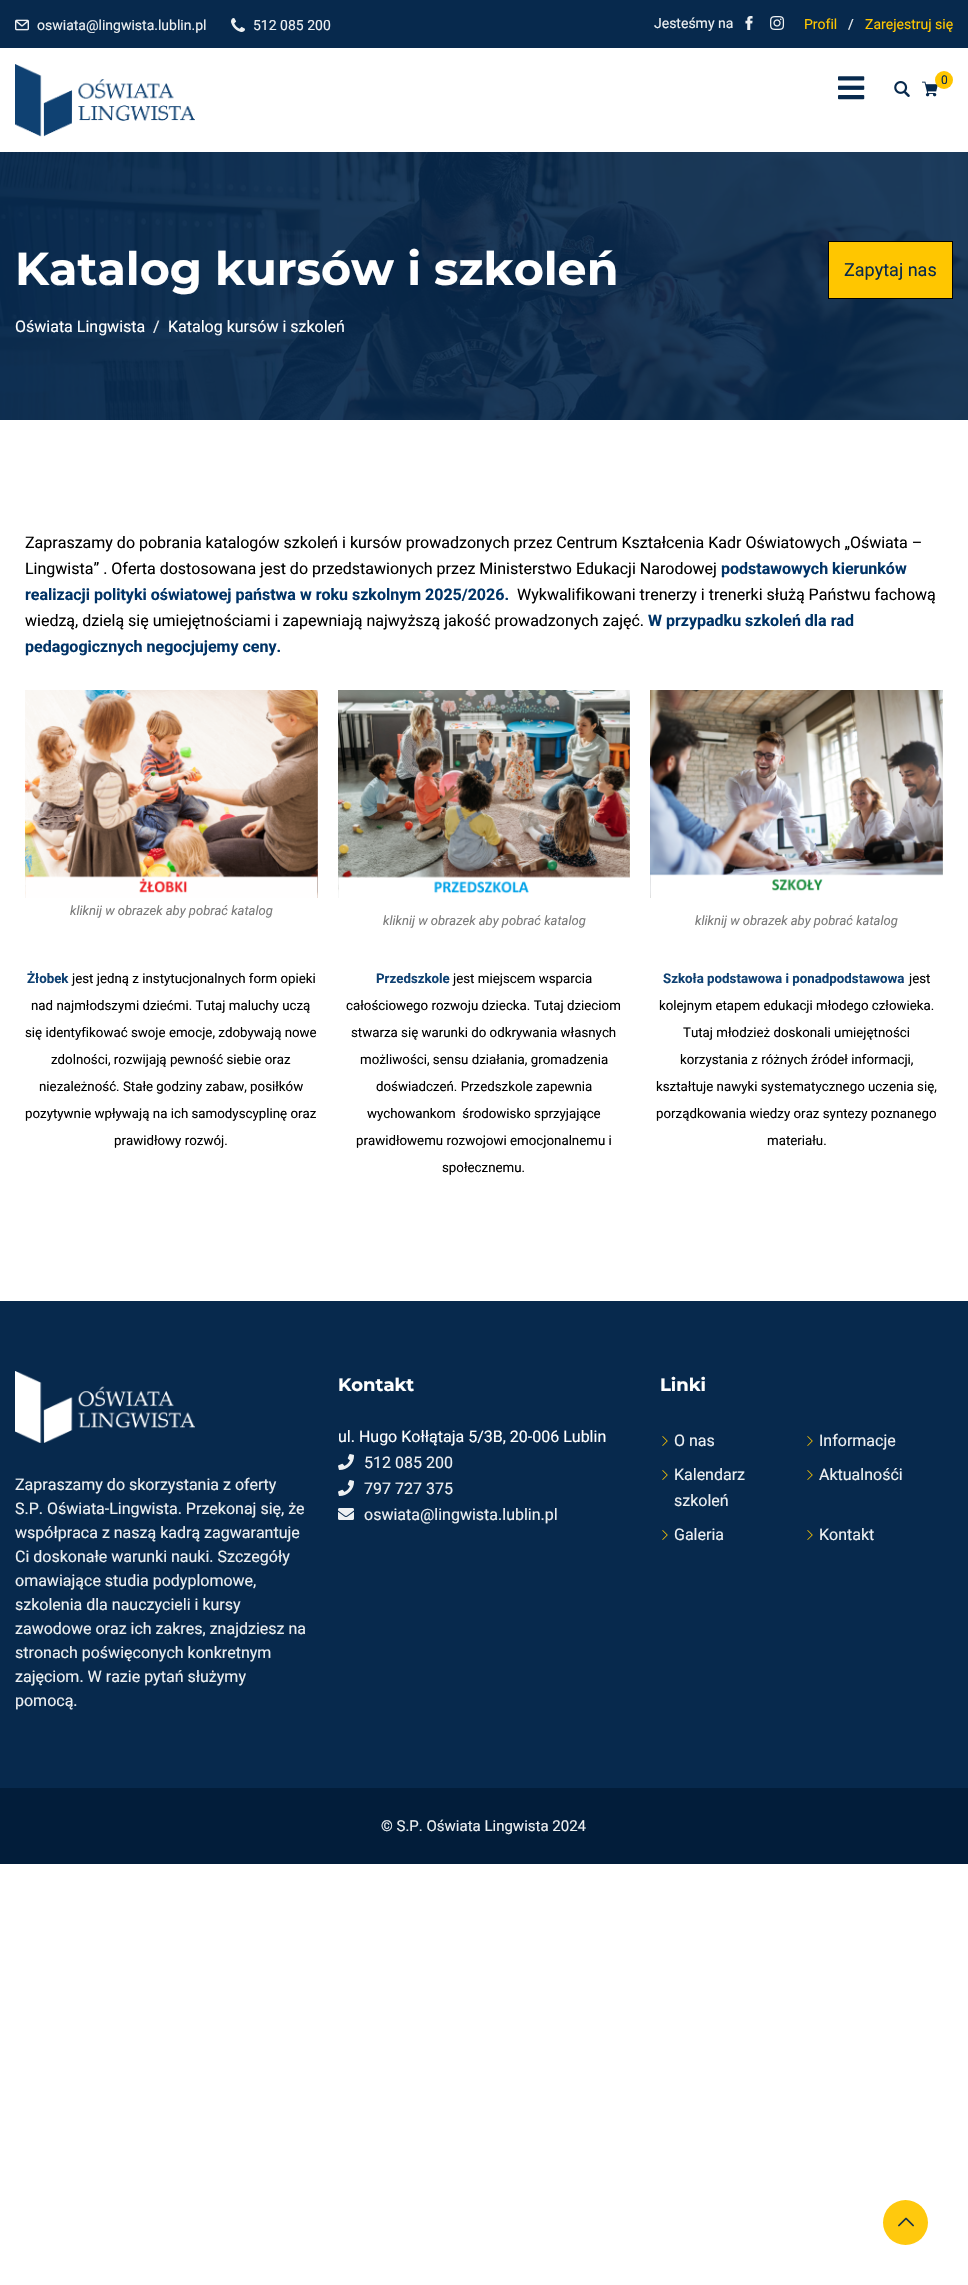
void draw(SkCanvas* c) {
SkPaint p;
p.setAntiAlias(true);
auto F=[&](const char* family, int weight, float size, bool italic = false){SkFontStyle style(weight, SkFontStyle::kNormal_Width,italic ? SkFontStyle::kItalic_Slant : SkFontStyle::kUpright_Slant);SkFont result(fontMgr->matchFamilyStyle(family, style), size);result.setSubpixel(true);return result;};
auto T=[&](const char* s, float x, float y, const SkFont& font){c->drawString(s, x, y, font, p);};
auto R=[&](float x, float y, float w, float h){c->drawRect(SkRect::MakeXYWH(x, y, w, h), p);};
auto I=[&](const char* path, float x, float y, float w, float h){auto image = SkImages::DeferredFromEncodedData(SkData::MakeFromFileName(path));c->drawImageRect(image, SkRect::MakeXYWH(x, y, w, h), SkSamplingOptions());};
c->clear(0xffffffff);
p.setColor(0xff07294d);
R(0,0,968,48);
I("1.png",15,19,14,12);
auto f1 = F("Roboto",400,14);
p.setColor(0xffedf0f2);
T("oswiata@lingwista.lublin.pl",37,30,f1);
I("2.png",231,18,14,14);
T("512 085 200",253,30,f1);
T("Jesteśmy na",654,28,f1);
I("3.png",745,16,8,14);
I("4.png",770,16,15,14);
p.setColor(0xffffc600);
T("Profil",804,29,f1);
p.setColor(0xffedf0f2);
T("/",848,29,f1);
p.setColor(0xffffc600);
T("Zarejestruj się",865,29,f1);
I("5.png",15,64,180,73);
I("6.png",838,76,27,24);
I("7.png",922,81,16,16);
c->drawCircle(944,80,9,p);
auto f2 = F("Roboto",400,12);
p.setColor(0xff07294d);
T("0",941,84,f2);
I("8.png",894,81,16,16);
I("9.png",0,152,968,268);
auto f3 = F("Montserrat",700,46);
p.setColor(0xffffffff);
T("Katalog kursów i szkoleń",15,285,f3);
p.setColor(0xffffc600);
c->drawRect(SkRect::MakeXYWH(828.5,241.5,124,57),p);
p.setStroke(true);
p.setStrokeWidth(1);
p.setColor(0xff000000);
c->drawRect(SkRect::MakeXYWH(828.5,241.5,124,57),p);
auto f4 = F("Roboto",400,18);
p.setStroke(false);
p.setColor(0xff07294d);
T("Zapytaj nas",844,276,f4);
auto f5 = F("Roboto",400,16);
p.setColor(0xffffffff);
T("Oświata Lingwista",15,332,f5);
p.setColor(0xffedf0f2);
T("/",153,332,f5);
p.setColor(0xffffffff);
T("Katalog kursów i szkoleń",168,332,f5);
p.setColor(0xff000000);
T("Zapraszamy do pobrania katalogów szkoleń i kursów prowadzonych przez Centrum Kształcenia Kadr Oświatowych „Oświata –",25,548,f5);
T("Lingwista” . Oferta dostosowana jest do przedstawionych przez Ministerstwo Edukacji Narodowej",25,574,f5);
auto f6 = F("Roboto",700,16);
p.setColor(0xff003366);
T("podstawowych kierunków",721,574,f6);
T("realizacji polityki oświatowej państwa w roku szkolnym 2025/2026.",25,600,f6);
p.setColor(0xff000000);
T("Wykwalifikowani trenerzy i trenerki służą Państwu fachową",517,600,f5);
T("wiedzą, dzielą się umiejętnościami i zapewniają najwyższą jakość prowadzonych zajęć.",25,626,f5);
p.setColor(0xff003366);
T("W przypadku szkoleń dla rad",648,626,f6);
T("pedagogicznych negocjujemy ceny.",25,652,f6);
I("10.png",25,690,293,208);
auto f7 = F("Roboto",400,13,true);
p.setColor(0xff7a7a7a);
T("kliknij w obrazek aby pobrać katalog",70,915,f7);
I("11.png",338,690,292,208);
T("kliknij w obrazek aby pobrać katalog",383,925,f7);
I("12.png",650,690,293,208);
T("kliknij w obrazek aby pobrać katalog",695,925,f7);
auto f8 = F("Roboto",700,13.3);
p.setColor(0xff0f4172);
T("Żłobek",27,983,f8);
auto f9 = F("Roboto",400,13.3);
p.setColor(0xff000000);
T("jest jedną z instytucjonalnych form opieki",72,983,f9);
T("nad najmłodszymi dziećmi. Tutaj maluchy uczą",31,1010,f9);
T("się identyfikować swoje emocje, zdobywają nowe",25,1037,f9);
T("zdolności, rozwijają pewność siebie oraz",51,1064,f9);
T("niezależność. Stałe godziny zabaw, posiłków",39,1091,f9);
T("pozytywnie wpływają na ich samodyscyplinę oraz",25,1118,f9);
T("prawidłowy rozwój.",114,1145,f9);
p.setColor(0xff0f4172);
T("Przedszkole",376,983,f8);
p.setColor(0xff000000);
T("jest miejscem wsparcia",453,983,f9);
T("całościowego rozwoju dziecka. Tutaj dzieciom",346,1010,f9);
T("stwarza się warunki do odkrywania własnych",351,1037,f9);
T("możliwości, sensu działania, gromadzenia",360,1064,f9);
T("doświadczeń. Przedszkole zapewnia",376,1091,f9);
T("wychowankom  środowisko sprzyjające",367,1118,f9);
T("prawidłowemu rozwojowi emocjonalnemu i",356,1145,f9);
T("społecznemu.",442,1172,f9);
p.setColor(0xff0f4172);
T("Szkoła podstawowa i ponadpodstawowa",663,983,f8);
p.setColor(0xff000000);
T("jest",909,983,f9);
T("kolejnym etapem edukacji młodego człowieka.",659,1010,f9);
T("Tutaj młodzież doskonali umiejętności",683,1037,f9);
T("korzystania z różnych źródeł informacji,",680,1064,f9);
T("kształtuje nawyki systematycznego uczenia się,",656,1091,f9);
T("porządkowania wiedzy oraz syntezy poznanego",656,1118,f9);
T("materiału.",767,1145,f9);
p.setColor(0xff07294d);
R(0,1301,968,487);
auto f10 = F("Montserrat",700,18);
p.setColor(0xffffffff);
T("Kontakt",338,1391,f10);
T("ul. Hugo Kołłątaja 5/3B, 20-006 Lublin",338,1442,f5);
I("13.png",338,1454,16,16);
p.setColor(0xffedf0f2);
T("512 085 200",364,1468,f5);
I("13.png",338,1480,16,16);
T("797 727 375",364,1494,f5);
I("14.png",338,1508,16,12);
T("oswiata@lingwista.lublin.pl",364,1520,f5);
p.setColor(0xffffffff);
T("Linki",660,1391,f10);
I("15.png",662,1436,6,10);
p.setColor(0xffedf0f2);
T("O nas",674,1446,f5);
I("15.png",807,1436,6,10);
T("Informacje",819,1446,f5);
I("15.png",662,1470,6,10);
T("Kalendarz",674,1480,f5);
T("szkoleń",674,1506,f5);
I("15.png",807,1470,6,10);
T("Aktualnośći",819,1480,f5);
I("15.png",662,1530,6,10);
T("Galeria",674,1540,f5);
I("15.png",807,1530,6,10);
T("Kontakt",819,1540,f5);
I("16.png",15,1371,180,72);
T("Zapraszamy do skorzystania z oferty",15,1490,f5);
T("S.P. Oświata-Lingwista. Przekonaj się, że",15,1514,f5);
T("współpraca z naszą kadrą zagwarantuje",15,1538,f5);
T("Ci doskonałe warunki nauki. Szczegóły",15,1562,f5);
T("omawiające studia podyplomowe,",15,1586,f5);
T("szkolenia dla nauczycieli i kursy",15,1610,f5);
T("zawodowe oraz ich zakres, znajdziesz na",15,1634,f5);
T("stronach poświęconych konkretnym",15,1658,f5);
T("zajęciom. W razie pytań służymy",15,1682,f5);
T("pomocą.",15,1706,f5);
p.setColor(0xff021d3a);
R(0,1788,968,76);
auto f11 = F("Roboto",400,15);
p.setColor(0xffedf0f2);
T("© S.P. Oświata Lingwista 2024",381,1831,f11);
p.setColor(0xffffc90d);
c->drawCircle(905.5,2222.5,22.5,p);
I("17.png",898,2217,16,10);
}
